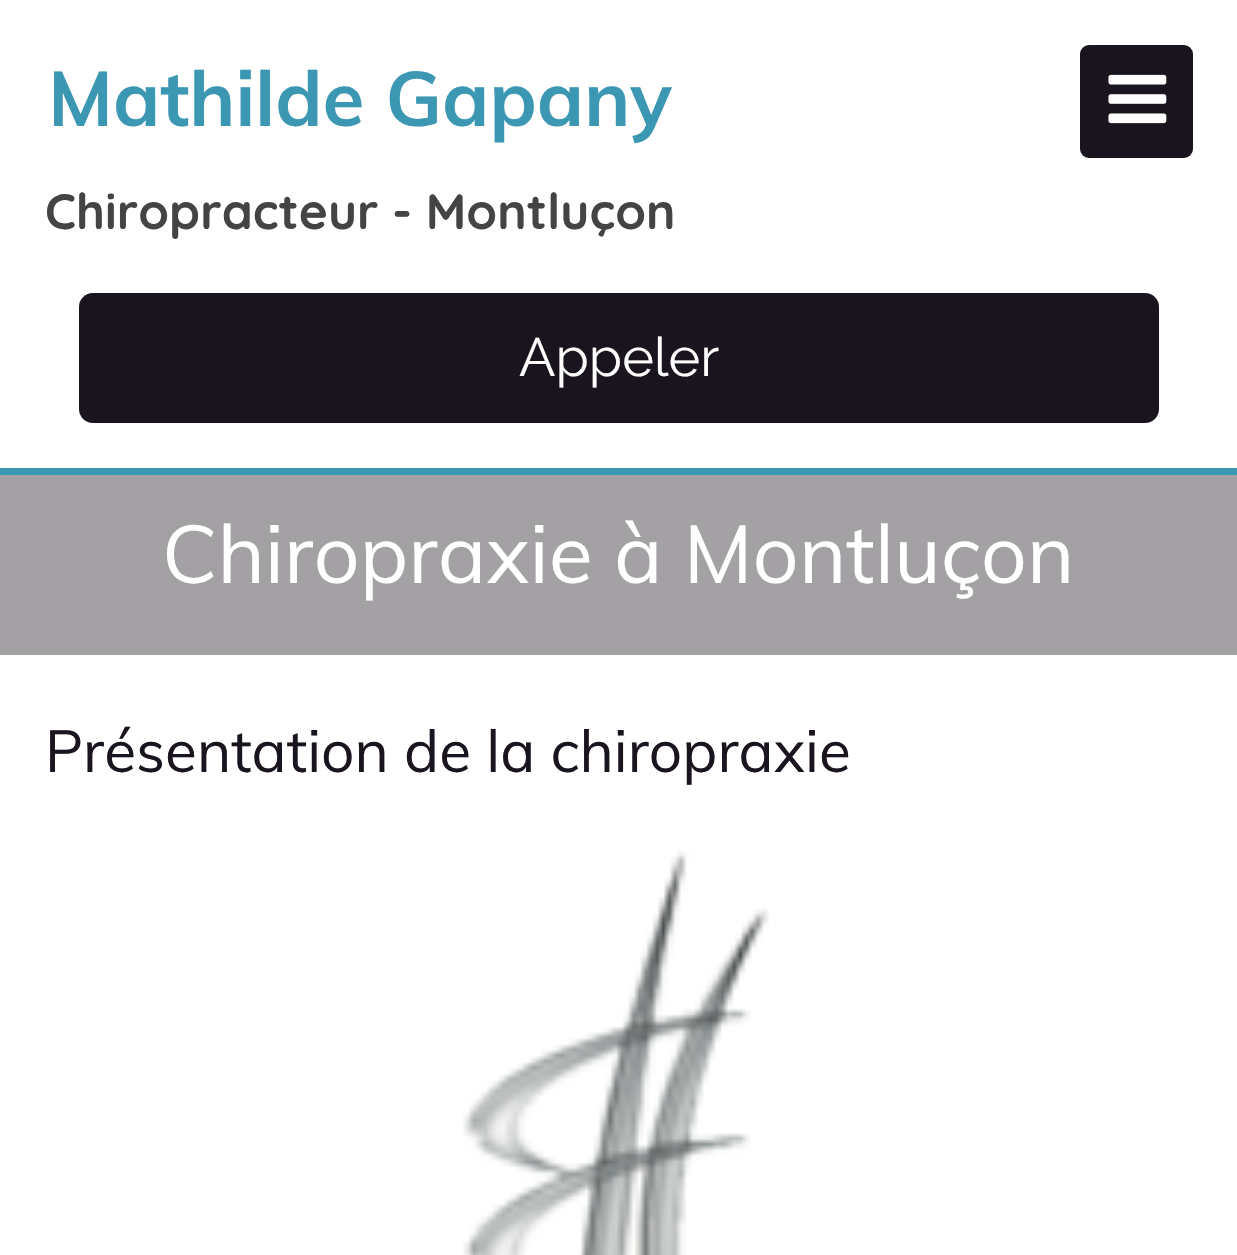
void draw(SkCanvas* c) {
SkPaint p;
p.setAntiAlias(true);
auto F=[&](const char* family, int weight, float size, bool italic = false){SkFontStyle style(weight, SkFontStyle::kNormal_Width,italic ? SkFontStyle::kItalic_Slant : SkFontStyle::kUpright_Slant);SkFont result(fontMgr->matchFamilyStyle(family, style), size);result.setSubpixel(true);return result;};
auto T=[&](const char* s, float x, float y, const SkFont& font){c->drawString(s, x, y, font, p);};
auto R=[&](float x, float y, float w, float h){c->drawRect(SkRect::MakeXYWH(x, y, w, h), p);};
auto Q=[&](float x, float y, float w, float h, float radius){c->drawRoundRect(SkRect::MakeXYWH(x, y, w, h), radius, radius, p);};
auto I=[&](const char* path, float x, float y, float w, float h){auto image = SkImages::DeferredFromEncodedData(SkData::MakeFromFileName(path));c->drawImageRect(image, SkRect::MakeXYWH(x, y, w, h), SkSamplingOptions());};
c->clear(0xffffffff);
p.setColor(0xff3c97b3);
R(0,468,1237,7);
auto f1 = F("Muli",700,76.5);
T("Mathilde Gapany",48,126,f1);
auto f2 = F("Quicksand",700,49.5);
p.setColor(0xff444444);
T("Chiropracteur - Montluçon",45,229,f2);
p.setColor(0xff1a141e);
Q(1080,45,113,113,9);
I("1.png",1108,74,59,50);
Q(79,293,1080,130,14);
auto f3 = F("Raleway",400,54);
p.setColor(0xffffffff);
T("Appeler",519,376,f3);
p.setColor(0xffa4a1a5);
R(0,475,1237,180);
auto f4 = F("Muli",400,81);
p.setColor(0xffffffff);
T("Chiropraxie à Montluçon",162,583,f4);
auto f5 = F("Muli",400,58.5);
p.setColor(0xff1a141e);
T("Présentation de la chiropraxie",45,772,f5);
I("2.png",463,850,306,405);
}
